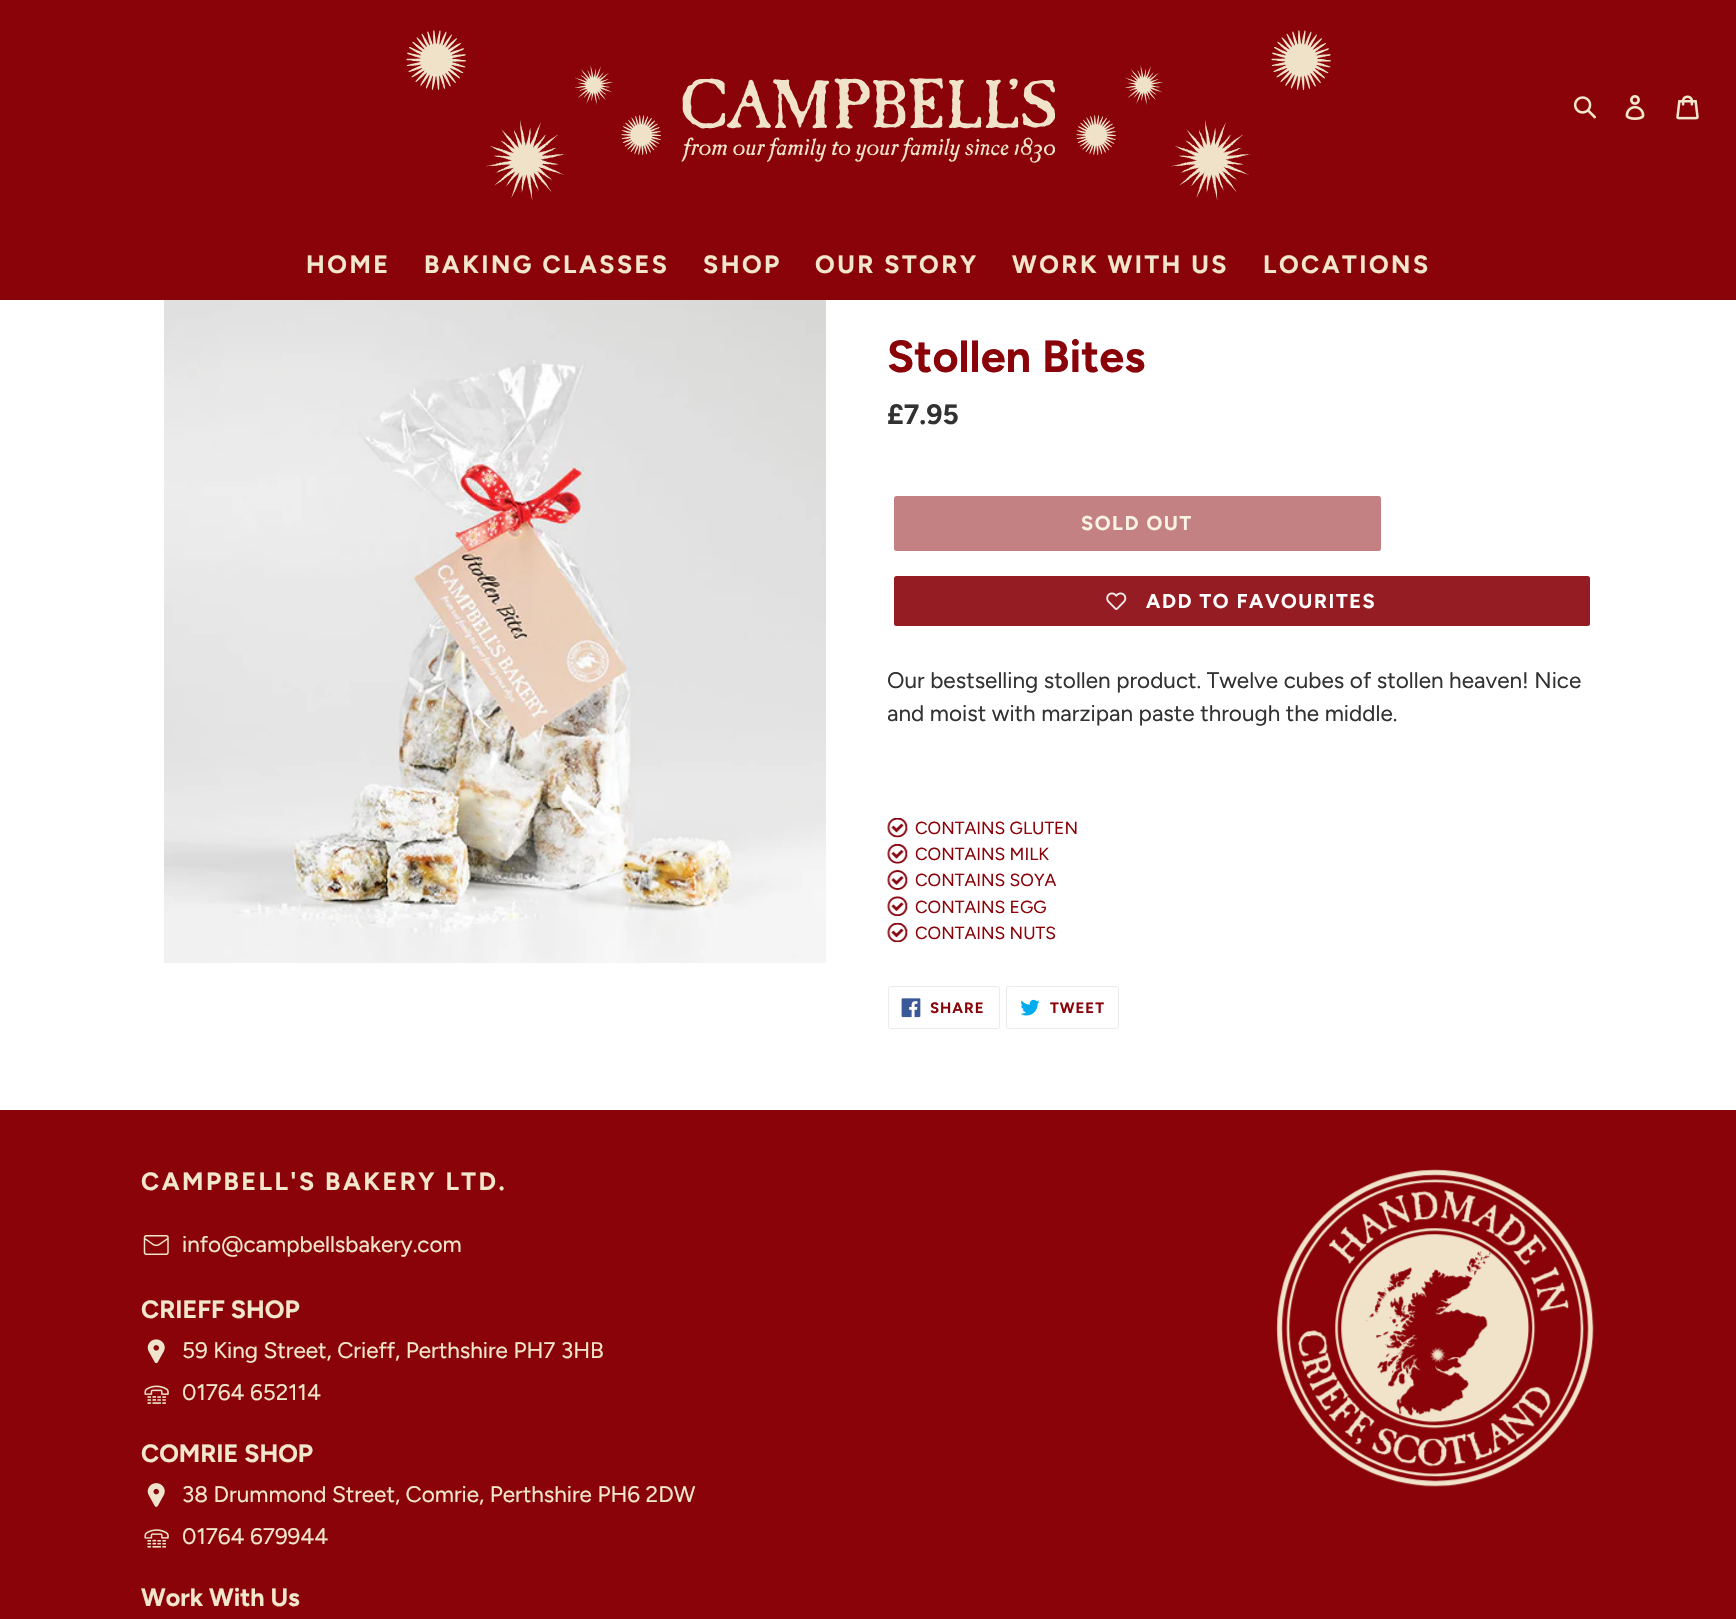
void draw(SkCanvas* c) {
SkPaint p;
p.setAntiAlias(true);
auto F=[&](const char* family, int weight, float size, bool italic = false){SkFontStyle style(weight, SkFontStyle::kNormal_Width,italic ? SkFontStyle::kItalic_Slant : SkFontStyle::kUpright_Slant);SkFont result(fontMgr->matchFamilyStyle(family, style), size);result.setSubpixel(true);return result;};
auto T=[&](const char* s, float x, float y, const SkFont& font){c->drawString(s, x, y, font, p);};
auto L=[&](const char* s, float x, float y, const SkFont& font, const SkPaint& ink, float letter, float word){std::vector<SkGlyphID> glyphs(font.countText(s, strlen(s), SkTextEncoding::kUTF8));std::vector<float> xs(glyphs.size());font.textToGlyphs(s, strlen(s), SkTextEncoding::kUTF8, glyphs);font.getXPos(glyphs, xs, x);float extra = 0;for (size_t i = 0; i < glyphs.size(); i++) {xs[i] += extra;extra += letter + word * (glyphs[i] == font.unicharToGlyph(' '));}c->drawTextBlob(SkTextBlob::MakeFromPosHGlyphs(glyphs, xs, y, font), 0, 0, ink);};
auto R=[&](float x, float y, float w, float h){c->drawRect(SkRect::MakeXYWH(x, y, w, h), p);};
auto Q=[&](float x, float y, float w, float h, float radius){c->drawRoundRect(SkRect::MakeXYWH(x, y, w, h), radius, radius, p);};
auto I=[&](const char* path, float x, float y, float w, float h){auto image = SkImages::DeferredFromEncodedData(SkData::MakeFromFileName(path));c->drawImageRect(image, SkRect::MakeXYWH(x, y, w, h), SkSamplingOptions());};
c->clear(0xffffffff);
p.setColor(0xff890309);
R(0,0,1736,300);
I("1.png",406,30,60,60);
I("2.png",575,65,38,40);
I("2.png",1125,65,38,40);
I("1.png",1271,30,60,60);
I("3.png",486,120,80,80);
I("4.png",621,115,40,40);
I("4.png",1076,115,40,40);
I("5.png",1171,120,80,80);
I("6.png",681,78,374,85);
I("7.png",1573,96,23,23);
I("8.png",1625,95,20,25);
I("9.png",1676,95,23,25);
auto f1 = F("Figtree",700,25);
p.setColor(0xfff2e7cc);
L("HOME",306,273,f1,p,2.5,0);
L("BAKING CLASSES",424,273,f1,p,2.5,0);
L("SHOP",703,273,f1,p,2.5,0);
L("OUR STORY",815,273,f1,p,2.5,0);
L("WORK WITH US",1012,273,f1,p,2.5,0);
L("LOCATIONS",1263,273,f1,p,2.5,0);
I("10.png",164,300,662,663);
auto f2 = F("Figtree",700,45);
p.setColor(0xff890309);
T("Stollen Bites",887,372,f2);
auto f3 = F("Figtree",700,28);
p.setColor(0xff333232);
T("£7.95",887,424,f3);
p.setColor(0xffc48184);
Q(894,496,487,55,2.5);
auto f4 = F("Figtree",700,20);
p.setColor(0xfff9f3e6);
L("SOLD OUT",1081,530,f4,p,1.6,0);
p.setColor(0xff951c22);
Q(894,576,696,50,2.5);
I("11.png",1106,592,21,18);
p.setColor(0xffffffff);
L("ADD TO FAVOURITES",1146,608,f4,p,1.6,0);
auto f5 = F("Figtree",400,22.5);
p.setColor(0xff333232);
T("Our bestselling stollen product. Twelve cubes of stollen heaven! Nice",887,688,f5);
T("and moist with marzipan paste through the middle.",887,721,f5);
I("12.png",887,818,21,20);
auto f6 = F("Figtree",400,17.5);
p.setColor(0xff890309);
T("CONTAINS GLUTEN",915,834,f6);
I("13.png",887,844,21,20);
T("CONTAINS MILK",915,860,f6);
I("14.png",887,870,21,20);
T("CONTAINS SOYA",915,886,f6);
I("15.png",887,896,21,20);
T("CONTAINS EGG",915,913,f6);
I("16.png",887,923,21,19);
T("CONTAINS NUTS",915,939,f6);
p.setStroke(true);
p.setStrokeWidth(1);
p.setColor(0xffebebeb);
c->drawRoundRect(SkRect::MakeXYWH(888.5,986.5,111,42),2,2,p);
I("17.png",901,998,20,20);
auto f7 = F("Figtree",700,15);
p.setStroke(false);
p.setColor(0xff890309);
L("SHARE",930,1013,f7,p,1,0);
p.setStroke(true);
p.setColor(0xffebebeb);
c->drawRoundRect(SkRect::MakeXYWH(1006.5,986.5,112,42),2,2,p);
I("18.png",1020,999,20,17);
p.setStroke(false);
p.setColor(0xff890309);
L("TWEET",1050,1013,f7,p,1,0);
R(0,1110,1736,509);
p.setColor(0xfff2e7cc);
L("CAMPBELL'S BAKERY LTD.",141,1190,f1,p,2.5,0);
I("19.png",143,1235,26,20);
T("info@campbellsbakery.com",182,1252,f5);
T("CRIEFF SHOP",141,1318,f1);
I("20.png",147,1339,18,25);
T("59 King Street, Crieff, Perthshire PH7 3HB",182,1358,f5);
I("21.png",144,1385,25,19);
T("01764 652114",182,1400,f5);
T("COMRIE SHOP",141,1462,f1);
I("22.png",147,1483,18,24);
T("38 Drummond Street, Comrie, Perthshire PH6 2DW",182,1502,f5);
I("23.png",144,1529,25,19);
T("01764 679944",182,1544,f5);
T("Work With Us",141,1606,f1);
I("24.png",1276,1169,318,318);
}
